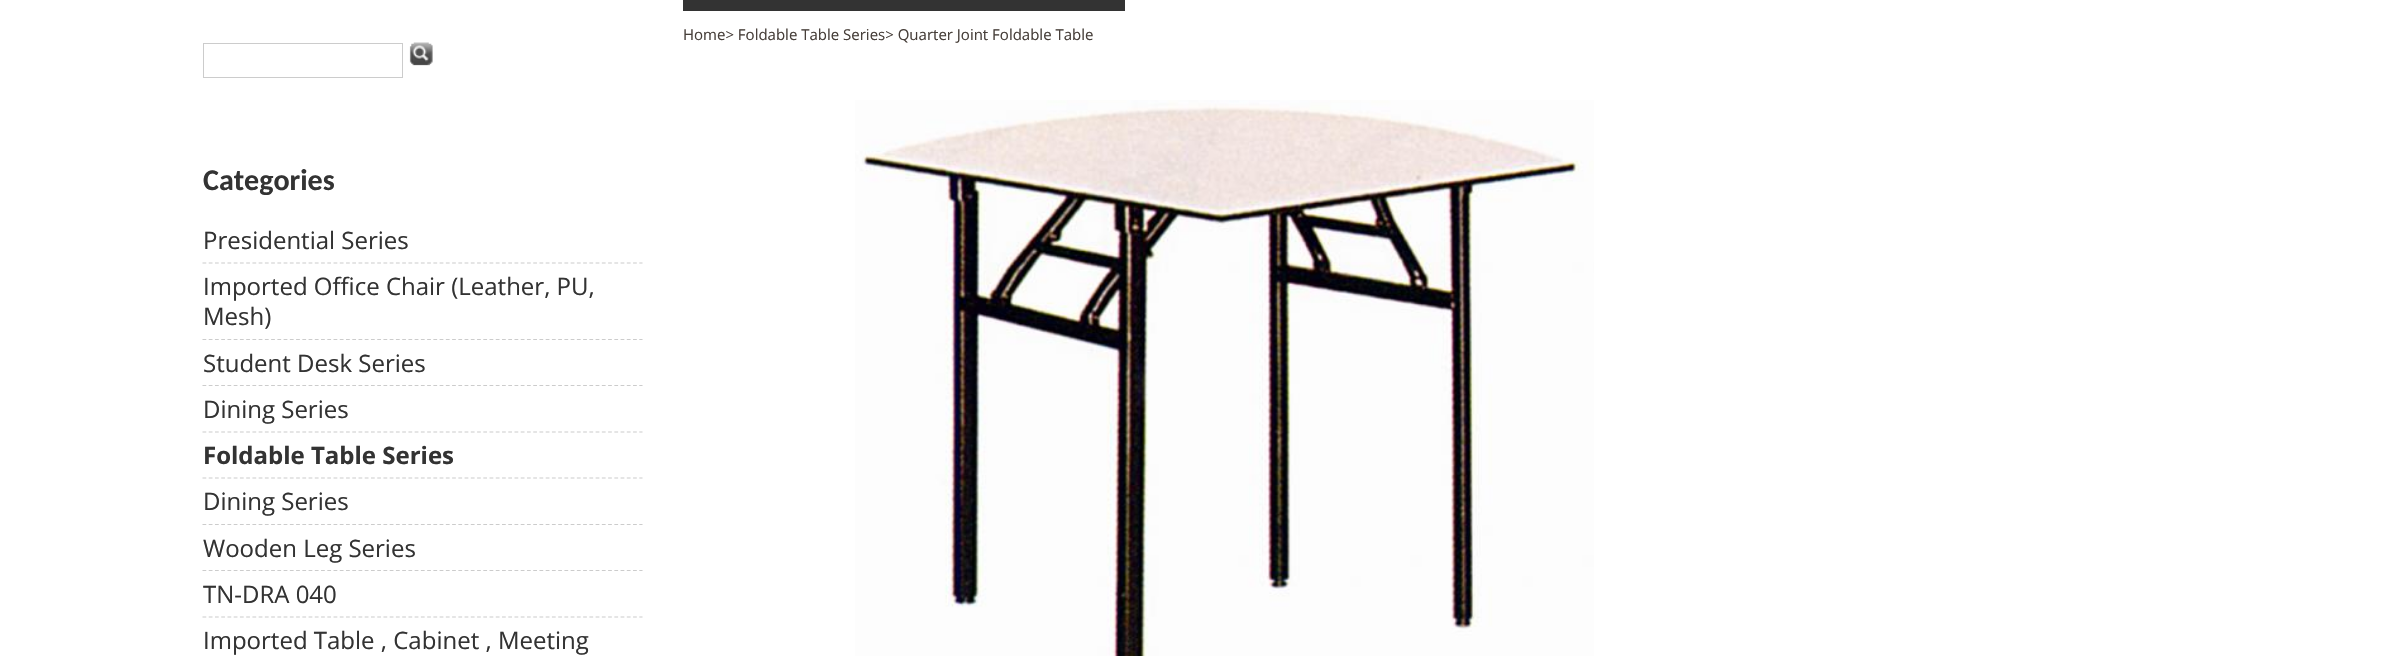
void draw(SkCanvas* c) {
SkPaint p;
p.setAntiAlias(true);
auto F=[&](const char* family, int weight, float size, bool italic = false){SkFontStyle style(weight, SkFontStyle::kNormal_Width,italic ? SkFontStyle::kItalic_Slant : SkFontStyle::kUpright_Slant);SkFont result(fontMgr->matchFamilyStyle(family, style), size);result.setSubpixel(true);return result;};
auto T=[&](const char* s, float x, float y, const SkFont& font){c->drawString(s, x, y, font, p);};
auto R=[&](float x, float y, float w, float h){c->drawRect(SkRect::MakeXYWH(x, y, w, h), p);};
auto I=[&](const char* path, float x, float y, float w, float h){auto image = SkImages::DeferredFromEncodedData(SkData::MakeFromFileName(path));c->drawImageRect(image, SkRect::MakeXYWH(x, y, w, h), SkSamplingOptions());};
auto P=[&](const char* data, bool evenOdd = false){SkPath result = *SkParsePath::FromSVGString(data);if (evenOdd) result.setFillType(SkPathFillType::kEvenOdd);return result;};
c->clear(0xffffffff);
p.setColor(0xff333333);
R(683,0,442,11);
auto f1 = F("Open Sans",400,15);
p.setColor(0xff473f3a);
T("Home> Foldable Table Series> Quarter Joint Foldable Table",683,40,f1);
I("1.png",855,100,739,556);
p.setStroke(true);
p.setStrokeWidth(1);
p.setColor(0xffcccccc);
c->drawRect(SkRect::MakeXYWH(203.5,43.5,199,34),p);
I("2.png",409,42,24,24);
auto f2 = F("Carlito",700,30);
p.setStroke(false);
p.setColor(0xff333333);
T("Categories",203,190,f2);
p.setStroke(true);
p.setStrokeWidth(1.2);
p.setColor(0xffcccccc);
p.setPathEffect(SkDashPathEffect::Make({{3.75f,2.49f}}, 0));
c->drawPath(P("M202.5 263h440"),p);
p.setPathEffect(nullptr);
auto f3 = F("Open Sans",400,24);
p.setStroke(false);
p.setColor(0xff333333);
T("Presidential Series",203,249,f3);
p.setStroke(true);
p.setColor(0xffcccccc);
p.setPathEffect(SkDashPathEffect::Make({{3.75f,2.49f}}, 0));
c->drawPath(P("M202.5 339.5h440"),p);
p.setPathEffect(nullptr);
p.setStroke(false);
p.setColor(0xff333333);
T("Imported Office Chair (Leather, PU,",203,295,f3);
T("Mesh)",203,325,f3);
p.setStroke(true);
p.setColor(0xffcccccc);
p.setPathEffect(SkDashPathEffect::Make({{3.75f,2.49f}}, 0));
c->drawPath(P("M202.5 385.5h440"),p);
p.setPathEffect(nullptr);
p.setStroke(false);
p.setColor(0xff333333);
T("Student Desk Series",203,372,f3);
p.setStroke(true);
p.setColor(0xffcccccc);
p.setPathEffect(SkDashPathEffect::Make({{3.75f,2.49f}}, 0));
c->drawPath(P("M202.5 432h440"),p);
p.setPathEffect(nullptr);
p.setStroke(false);
p.setColor(0xff333333);
T("Dining Series",203,418,f3);
p.setStroke(true);
p.setColor(0xffcccccc);
p.setPathEffect(SkDashPathEffect::Make({{3.75f,2.49f}}, 0));
c->drawPath(P("M202.5 478h440"),p);
p.setPathEffect(nullptr);
auto f4 = F("Open Sans",700,24);
p.setStroke(false);
p.setColor(0xff333333);
T("Foldable Table Series",203,464,f4);
p.setStroke(true);
p.setColor(0xffcccccc);
p.setPathEffect(SkDashPathEffect::Make({{3.75f,2.49f}}, 0));
c->drawPath(P("M202.5 524.5h440"),p);
p.setPathEffect(nullptr);
p.setStroke(false);
p.setColor(0xff333333);
T("Dining Series",203,510,f3);
p.setStroke(true);
p.setColor(0xffcccccc);
p.setPathEffect(SkDashPathEffect::Make({{3.75f,2.49f}}, 0));
c->drawPath(P("M202.5 570.5h440"),p);
p.setPathEffect(nullptr);
p.setStroke(false);
p.setColor(0xff333333);
T("Wooden Leg Series",203,557,f3);
p.setStroke(true);
p.setColor(0xffcccccc);
p.setPathEffect(SkDashPathEffect::Make({{3.75f,2.49f}}, 0));
c->drawPath(P("M202.5 617h440"),p);
p.setPathEffect(nullptr);
p.setStroke(false);
p.setColor(0xff333333);
T("TN-DRA 040",203,603,f3);
T("Imported Table , Cabinet , Meeting",203,649,f3);
}
